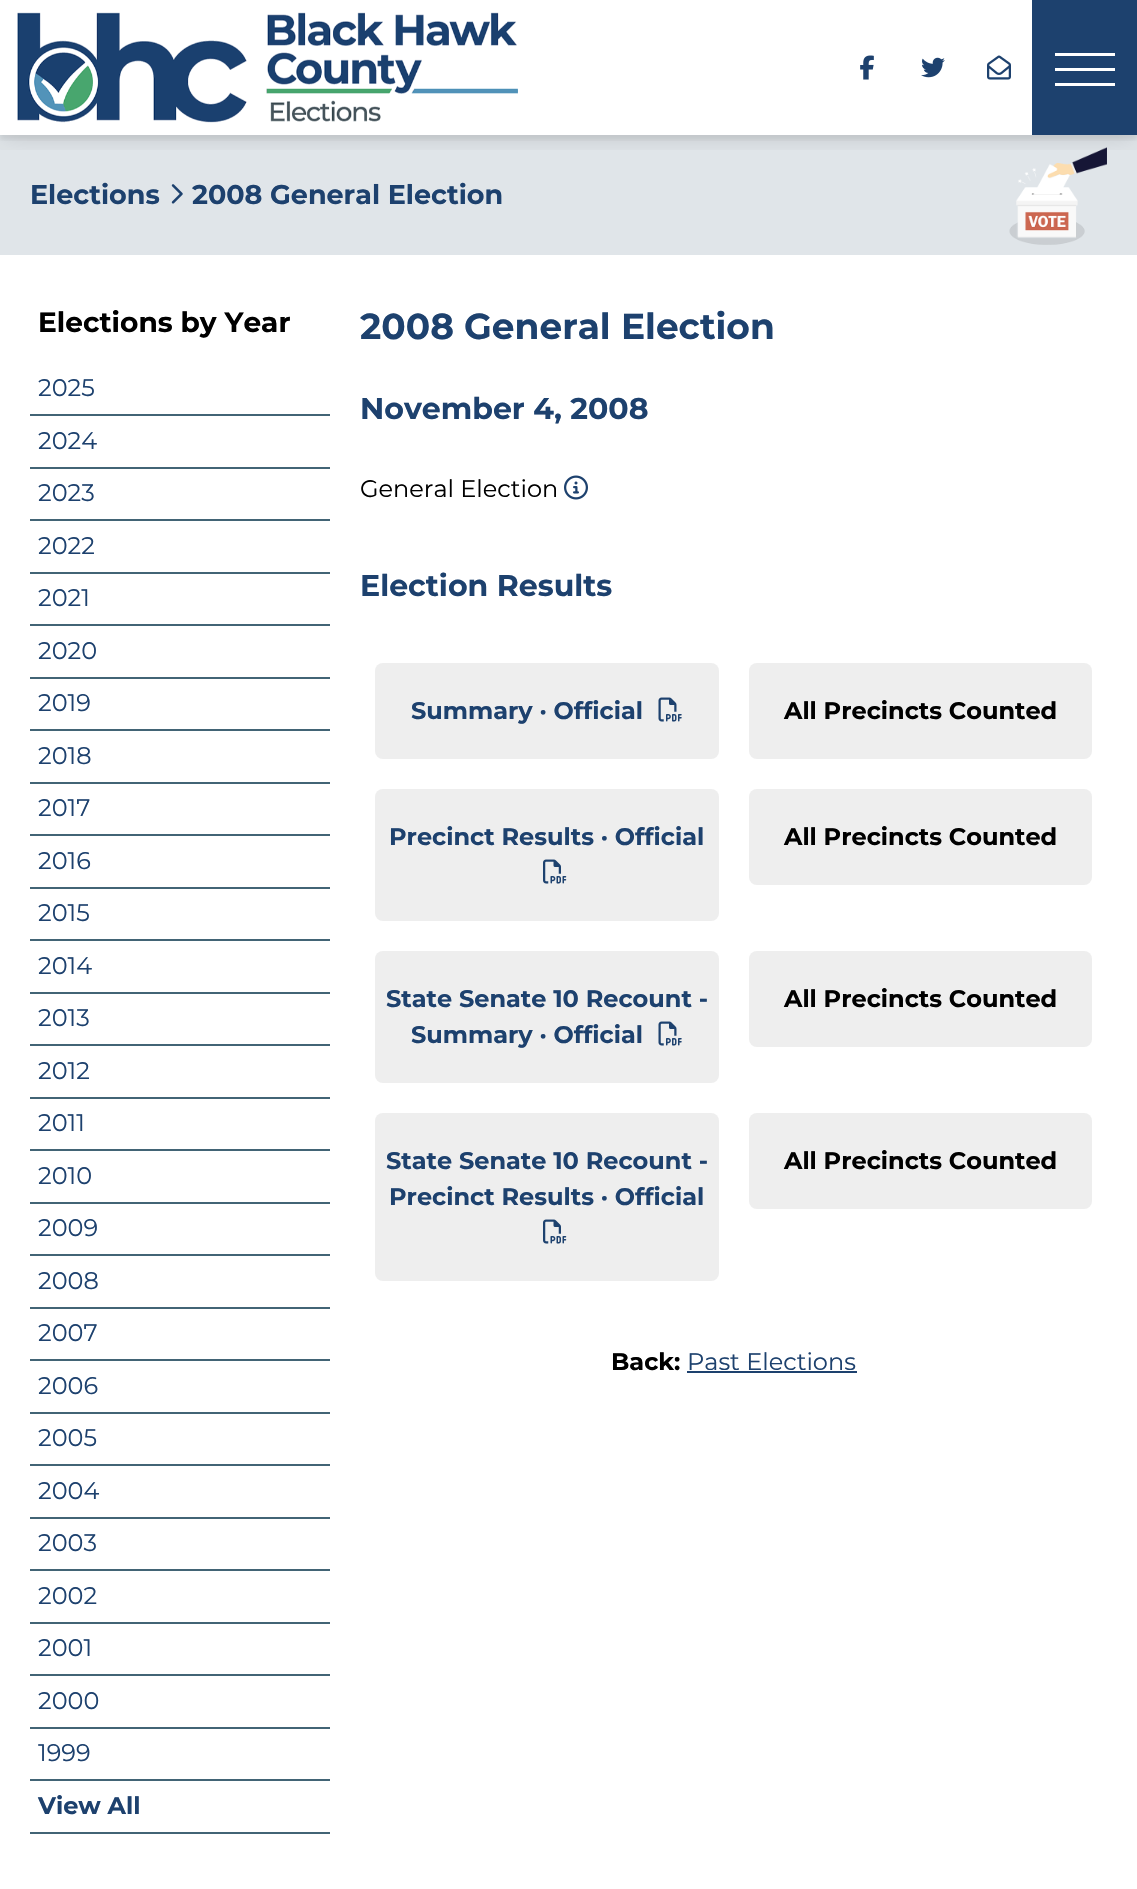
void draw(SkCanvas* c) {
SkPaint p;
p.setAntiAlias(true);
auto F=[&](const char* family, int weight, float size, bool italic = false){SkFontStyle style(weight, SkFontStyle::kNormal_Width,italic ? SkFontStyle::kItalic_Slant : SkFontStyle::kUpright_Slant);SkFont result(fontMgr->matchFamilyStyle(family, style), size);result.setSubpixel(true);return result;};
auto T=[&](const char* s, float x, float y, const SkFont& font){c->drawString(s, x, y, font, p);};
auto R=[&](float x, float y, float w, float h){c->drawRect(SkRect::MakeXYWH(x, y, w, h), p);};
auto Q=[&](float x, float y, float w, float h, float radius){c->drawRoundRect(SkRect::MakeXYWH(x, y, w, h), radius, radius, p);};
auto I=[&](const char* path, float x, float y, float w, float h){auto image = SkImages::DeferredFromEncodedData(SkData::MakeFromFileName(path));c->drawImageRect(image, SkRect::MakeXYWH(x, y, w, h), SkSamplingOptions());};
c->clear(0xffffffff);
p.setColor(0xffe0e5e9);
R(0,135,1137,120);
I("6.png",1009,147,98,98);
c->save();
c->clipRect(SkRect::MakeXYWH(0,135,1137,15));
p.setColor(0x1f000000);
p.setMaskFilter(SkMaskFilter::MakeBlur(kNormal_SkBlurStyle, 12));
c->drawRect(SkRect::MakeXYWH(0,3,1137,135),p);
p.setMaskFilter(nullptr);
c->restore();
c->save();
c->clipRect(SkRect::MakeXYWH(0,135,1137,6));
p.setColor(0x0f000000);
p.setMaskFilter(SkMaskFilter::MakeBlur(kNormal_SkBlurStyle, 2));
c->drawRect(SkRect::MakeXYWH(0,5,1137,135),p);
p.setMaskFilter(nullptr);
c->restore();
I("1.png",17,12,501,111);
I("2.png",860,55,14,25);
I("3.png",921,57,24,21);
I("4.png",987,55,24,25);
p.setColor(0xff1d416e);
R(1032,0,105,135);
p.setColor(0xffffffff);
R(1055,53,60,3);
R(1055,68,60,3);
R(1055,83,60,3);
auto f1 = F("Montserrat",700,27);
p.setColor(0xff1d416e);
T("Elections",30,204,f1);
I("5.png",171,184,12,20);
T("2008 General Election",192,204,f1);
auto f2 = F("Montserrat",700,28);
p.setColor(0xff000000);
T("Elections by Year",38,332,f2);
p.setColor(0xff426475);
R(30,414,300,2);
auto f3 = F("Montserrat",400,24);
p.setColor(0xff1d416e);
T("2025",38,396,f3);
p.setColor(0xff426475);
R(30,467,300,2);
p.setColor(0xff1d416e);
T("2024",38,449,f3);
p.setColor(0xff426475);
R(30,519,300,2);
p.setColor(0xff1d416e);
T("2023",38,501,f3);
p.setColor(0xff426475);
R(30,572,300,2);
p.setColor(0xff1d416e);
T("2022",38,554,f3);
p.setColor(0xff426475);
R(30,624,300,2);
p.setColor(0xff1d416e);
T("2021",38,606,f3);
p.setColor(0xff426475);
R(30,677,300,2);
p.setColor(0xff1d416e);
T("2020",38,659,f3);
p.setColor(0xff426475);
R(30,729,300,2);
p.setColor(0xff1d416e);
T("2019",38,711,f3);
p.setColor(0xff426475);
R(30,782,300,2);
p.setColor(0xff1d416e);
T("2018",38,764,f3);
p.setColor(0xff426475);
R(30,834,300,2);
p.setColor(0xff1d416e);
T("2017",38,816,f3);
p.setColor(0xff426475);
R(30,887,300,2);
p.setColor(0xff1d416e);
T("2016",38,869,f3);
p.setColor(0xff426475);
R(30,939,300,2);
p.setColor(0xff1d416e);
T("2015",38,921,f3);
p.setColor(0xff426475);
R(30,992,300,2);
p.setColor(0xff1d416e);
T("2014",38,974,f3);
p.setColor(0xff426475);
R(30,1044,300,2);
p.setColor(0xff1d416e);
T("2013",38,1026,f3);
p.setColor(0xff426475);
R(30,1097,300,2);
p.setColor(0xff1d416e);
T("2012",38,1079,f3);
p.setColor(0xff426475);
R(30,1149,300,2);
p.setColor(0xff1d416e);
T("2011",38,1131,f3);
p.setColor(0xff426475);
R(30,1202,300,2);
p.setColor(0xff1d416e);
T("2010",38,1184,f3);
p.setColor(0xff426475);
R(30,1254,300,2);
p.setColor(0xff1d416e);
T("2009",38,1236,f3);
p.setColor(0xff426475);
R(30,1307,300,2);
p.setColor(0xff1d416e);
T("2008",38,1289,f3);
p.setColor(0xff426475);
R(30,1359,300,2);
p.setColor(0xff1d416e);
T("2007",38,1341,f3);
p.setColor(0xff426475);
R(30,1412,300,2);
p.setColor(0xff1d416e);
T("2006",38,1394,f3);
p.setColor(0xff426475);
R(30,1464,300,2);
p.setColor(0xff1d416e);
T("2005",38,1446,f3);
p.setColor(0xff426475);
R(30,1517,300,2);
p.setColor(0xff1d416e);
T("2004",38,1499,f3);
p.setColor(0xff426475);
R(30,1569,300,2);
p.setColor(0xff1d416e);
T("2003",38,1551,f3);
p.setColor(0xff426475);
R(30,1622,300,2);
p.setColor(0xff1d416e);
T("2002",38,1604,f3);
p.setColor(0xff426475);
R(30,1674,300,2);
p.setColor(0xff1d416e);
T("2001",38,1656,f3);
p.setColor(0xff426475);
R(30,1727,300,2);
p.setColor(0xff1d416e);
T("2000",38,1709,f3);
p.setColor(0xff426475);
R(30,1779,300,2);
p.setColor(0xff1d416e);
T("1999",38,1761,f3);
p.setColor(0xff426475);
R(30,1832,300,2);
auto f4 = F("Montserrat",700,24);
p.setColor(0xff1d416e);
T("View All",38,1814,f4);
auto f5 = F("Montserrat",700,36);
T("2008 General Election",360,339,f5);
auto f6 = F("Montserrat",700,30);
T("November 4, 2008",360,419,f6);
p.setColor(0xff000000);
T("General Election",360,497,f3);
I("7.png",564,475,24,25);
p.setColor(0xff1d416e);
T("Election Results",360,596,f6);
p.setColor(0xffeeeeee);
Q(375,663,344,96,8);
p.setColor(0xff1d416e);
T("Summary · Official",411,719,f4);
I("8.png",658,697,24,25);
p.setColor(0xffeeeeee);
Q(749,663,343,96,8);
p.setColor(0xff000000);
T("All Precincts Counted",784,719,f4);
p.setColor(0xffeeeeee);
Q(375,789,344,132,8);
p.setColor(0xff1d416e);
T("Precinct Results · Official",389,845,f4);
I("9.png",543,859,24,25);
p.setColor(0xffeeeeee);
Q(749,789,343,96,8);
p.setColor(0xff000000);
T("All Precincts Counted",784,845,f4);
p.setColor(0xffeeeeee);
Q(375,951,344,132,8);
p.setColor(0xff1d416e);
T("State Senate 10 Recount -",386,1007,f4);
T("Summary · Official",411,1043,f4);
I("8.png",658,1021,24,25);
p.setColor(0xffeeeeee);
Q(749,951,343,96,8);
p.setColor(0xff000000);
T("All Precincts Counted",784,1007,f4);
p.setColor(0xffeeeeee);
Q(375,1113,344,168,8);
p.setColor(0xff1d416e);
T("State Senate 10 Recount -",386,1169,f4);
T("Precinct Results · Official",389,1205,f4);
I("9.png",543,1219,24,25);
p.setColor(0xffeeeeee);
Q(749,1113,343,96,8);
p.setColor(0xff000000);
T("All Precincts Counted",784,1169,f4);
T("Back:",611,1370,f4);
p.setColor(0xff1d416e);
T("Past Elections",687,1370,f3);
R(687,1371,170,2);
}
